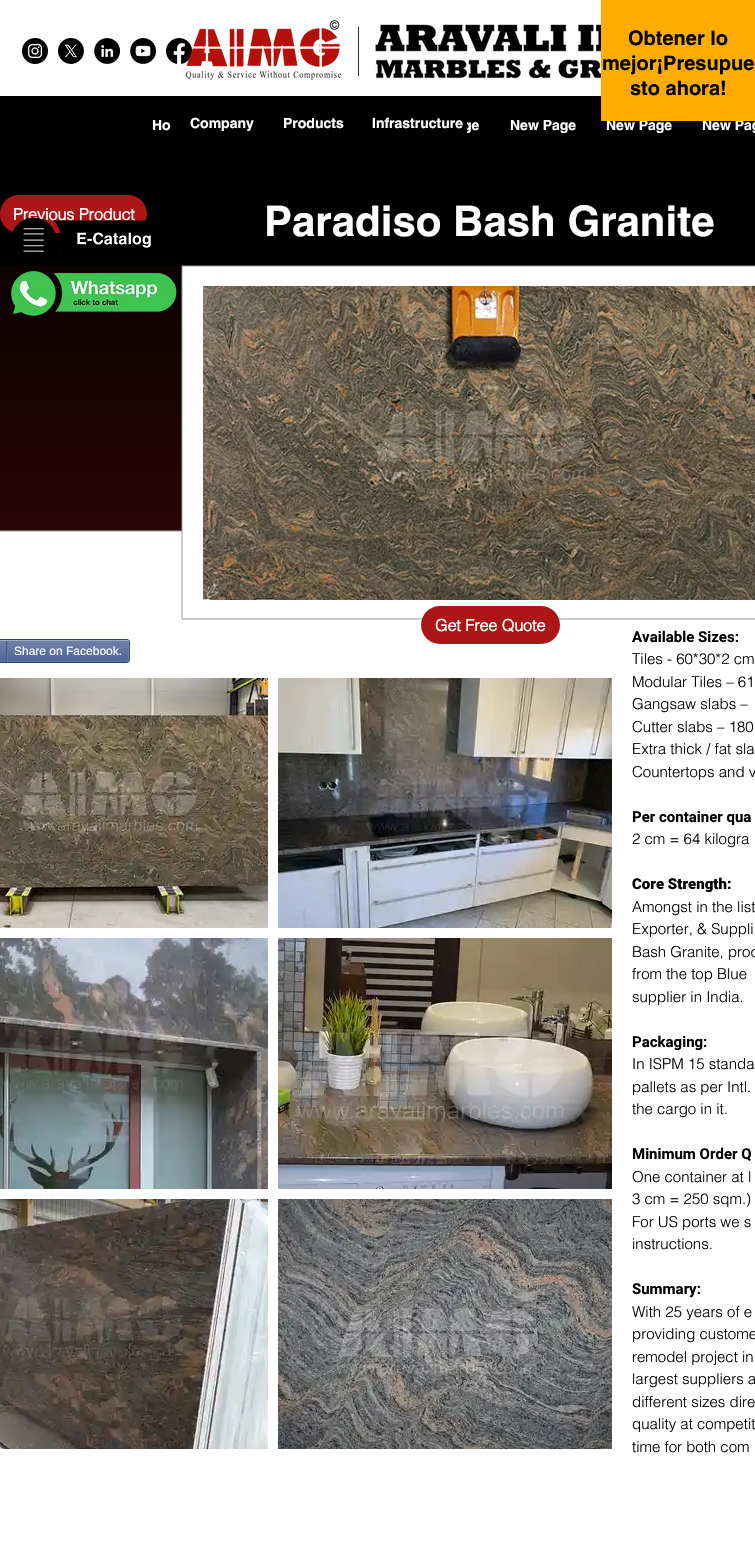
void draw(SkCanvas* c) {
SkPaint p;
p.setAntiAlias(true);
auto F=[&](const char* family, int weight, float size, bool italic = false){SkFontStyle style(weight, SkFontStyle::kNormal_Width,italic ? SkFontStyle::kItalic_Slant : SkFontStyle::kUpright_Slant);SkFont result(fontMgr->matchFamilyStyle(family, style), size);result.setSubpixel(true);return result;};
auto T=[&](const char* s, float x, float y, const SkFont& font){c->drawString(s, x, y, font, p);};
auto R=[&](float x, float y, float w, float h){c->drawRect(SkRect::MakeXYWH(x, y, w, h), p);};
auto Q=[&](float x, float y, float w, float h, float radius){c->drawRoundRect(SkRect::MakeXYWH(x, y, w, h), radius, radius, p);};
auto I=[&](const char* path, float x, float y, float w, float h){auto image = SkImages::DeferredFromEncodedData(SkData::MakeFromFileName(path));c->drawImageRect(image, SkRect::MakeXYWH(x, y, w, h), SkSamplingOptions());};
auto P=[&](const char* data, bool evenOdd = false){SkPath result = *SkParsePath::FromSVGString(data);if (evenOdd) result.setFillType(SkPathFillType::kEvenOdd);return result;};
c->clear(0xffffffff);
p.setColor(0xff000000);
R(0,96,755,170);
auto f1 = F("helvetica",700,14);
p.setColor(0xffffffff);
T("New Page",606,130,f1);
T("New Pag",702,130,f1);
p.setColor(0xffffac01);
R(601,0,154,121);
auto f2 = F("helvetica",700,20);
p.setColor(0xff000000);
T("Obtener lo",628,45,f2);
T("mejor¡Presupue",602,70,f2);
T("sto ahora!",630,95,f2);
I("1.png",22,38,26,26);
I("2.png",58,38,26,26);
I("3.png",94,38,26,26);
I("4.png",130,38,26,26);
I("5.png",166,38,26,26);
I("6.png",185,20,157,60);
p.setColor(0xff282626);
R(358,27,1,49);
I("7.png",375,24,226,55);
p.setColor(0xffffffff);
T("Company",190,128,f1);
T("Products",283,128,f1);
T("Infrastructure",372,128,f1);
T("ge",463,130,f1);
p.setColor(0xff000000);
R(463,122,4,11);
p.setColor(0xffffffff);
T("Ho",152,130,f1);
T("New Page",510,130,f1);
p.setColor(0xffac1616);
Q(0,195,147,38,19);
auto f3 = F("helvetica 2",700,16);
p.setColor(0xffffffff);
T("Previous Product",13,220,f3);
auto f4 = F("helvetica",700,42);
T("Paradiso Bash Granite",264,236,f4);
{
const SkColor colors[] = {0xffac1616,0xff000000};
const float stops[] = {0,1};
const SkPoint ends[] = {{490,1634}, {490,168}};
p.setShader(SkGradientShader::MakeLinear(ends, colors, stops, 2, SkTileMode::kClamp));
p.setAlpha(255);
}
R(0,266,182,265);
p.setStroke(true);
p.setStrokeWidth(1);
p.setShader(nullptr);
p.setColor(0xff999997);
c->drawPath(P("M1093 531v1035h-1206v-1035z"),p);
p.setStroke(false);
p.setColor(0xffffffff);
R(182,530,573,2);
p.setStroke(true);
p.setColor(0xff999997);
c->drawPath(P("M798 266v353h-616v-353z"),p);
I("8.png",203,286,552,314);
p.setStroke(false);
p.setColor(0xffac1616);
Q(421,606,139,38,19);
p.setColor(0xffffffff);
T("Get Free Quote",435,631,f3);
p.setStroke(true);
p.setColor(0xff2d4565);
c->drawRoundRect(SkRect::MakeXYWH(-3.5,639.5,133,23),2.5,2.5,p);
I("9.png",0,641,129,21);
p.setColor(0xff9aabc6);
c->drawPath(P("M-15 641l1-.5h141.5l.5 .5"),p);
p.setColor(0xff6f83ad);
c->drawPath(P("M128 641c1 .5 1 19.5 0 20"),p);
p.setColor(0xff6176a3);
c->drawPath(P("M128 661l-.5 .5h-47.5h-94l-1-.5"),p);
p.setStroke(false);
p.setColor(0xff425e85);
R(6,641,1,21);
auto f5 = F("Liberation Sans",400,12);
p.setColor(0xffffffff);
T("Share on Facebook.",14,655,f5);
p.setColor(0xff6176a3);
R(7,641,1,20);
auto f6 = F("Roboto",700,15);
p.setColor(0xff000000);
T("Available Sizes:",632,642,f6);
auto f7 = F("helvetica",300,15);
T("Tiles - 60*30*2 cm",632,664,f7);
T("Modular Tiles – 61",632,687,f7);
T("Gangsaw slabs –",632,709,f7);
T("Cutter slabs – 180",632,732,f7);
T("Extra thick / fat sla",632,754,f7);
T("Countertops and v",632,777,f7);
T("Per container qua",632,822,f6);
T("2 cm = 64 kilogra",632,844,f7);
auto f8 = F("Roboto",900,15);
T("Core Strength:",632,889,f8);
T("Amongst in the list",632,912,f7);
T("Exporter, & Suppli",632,934,f7);
T("Bash Granite, proc",632,957,f7);
T("from the top Blue",632,979,f7);
T("supplier in India.",632,1002,f7);
T("Packaging:",632,1047,f6);
T("In ISPM 15 standa",632,1069,f7);
T("pallets as per Intl.",632,1092,f7);
T("the cargo in it.",632,1114,f7);
T("Minimum Order Q",632,1159,f6);
T("One container at l",632,1182,f7);
T("3 cm = 250 sqm.)",632,1204,f7);
T("For US ports we s",632,1227,f7);
T("instructions.",632,1249,f7);
T("Summary:",632,1294,f6);
T("With 25 years of e",632,1317,f7);
T("providing custome",632,1339,f7);
T("remodel project in",632,1362,f7);
T("largest suppliers a",632,1384,f7);
T("different sizes dire",632,1407,f7);
T("quality at competit",632,1429,f7);
T("time for both com",632,1452,f7);
I("10.png",0,678,268,250);
I("11.png",278,678,334,250);
I("12.png",0,938,268,251);
I("13.png",278,938,334,251);
I("14.png",0,1199,268,250);
I("15.png",278,1199,334,250);
I("16.png",12,217,139,42);
I("17.png",11,271,166,45);
}
